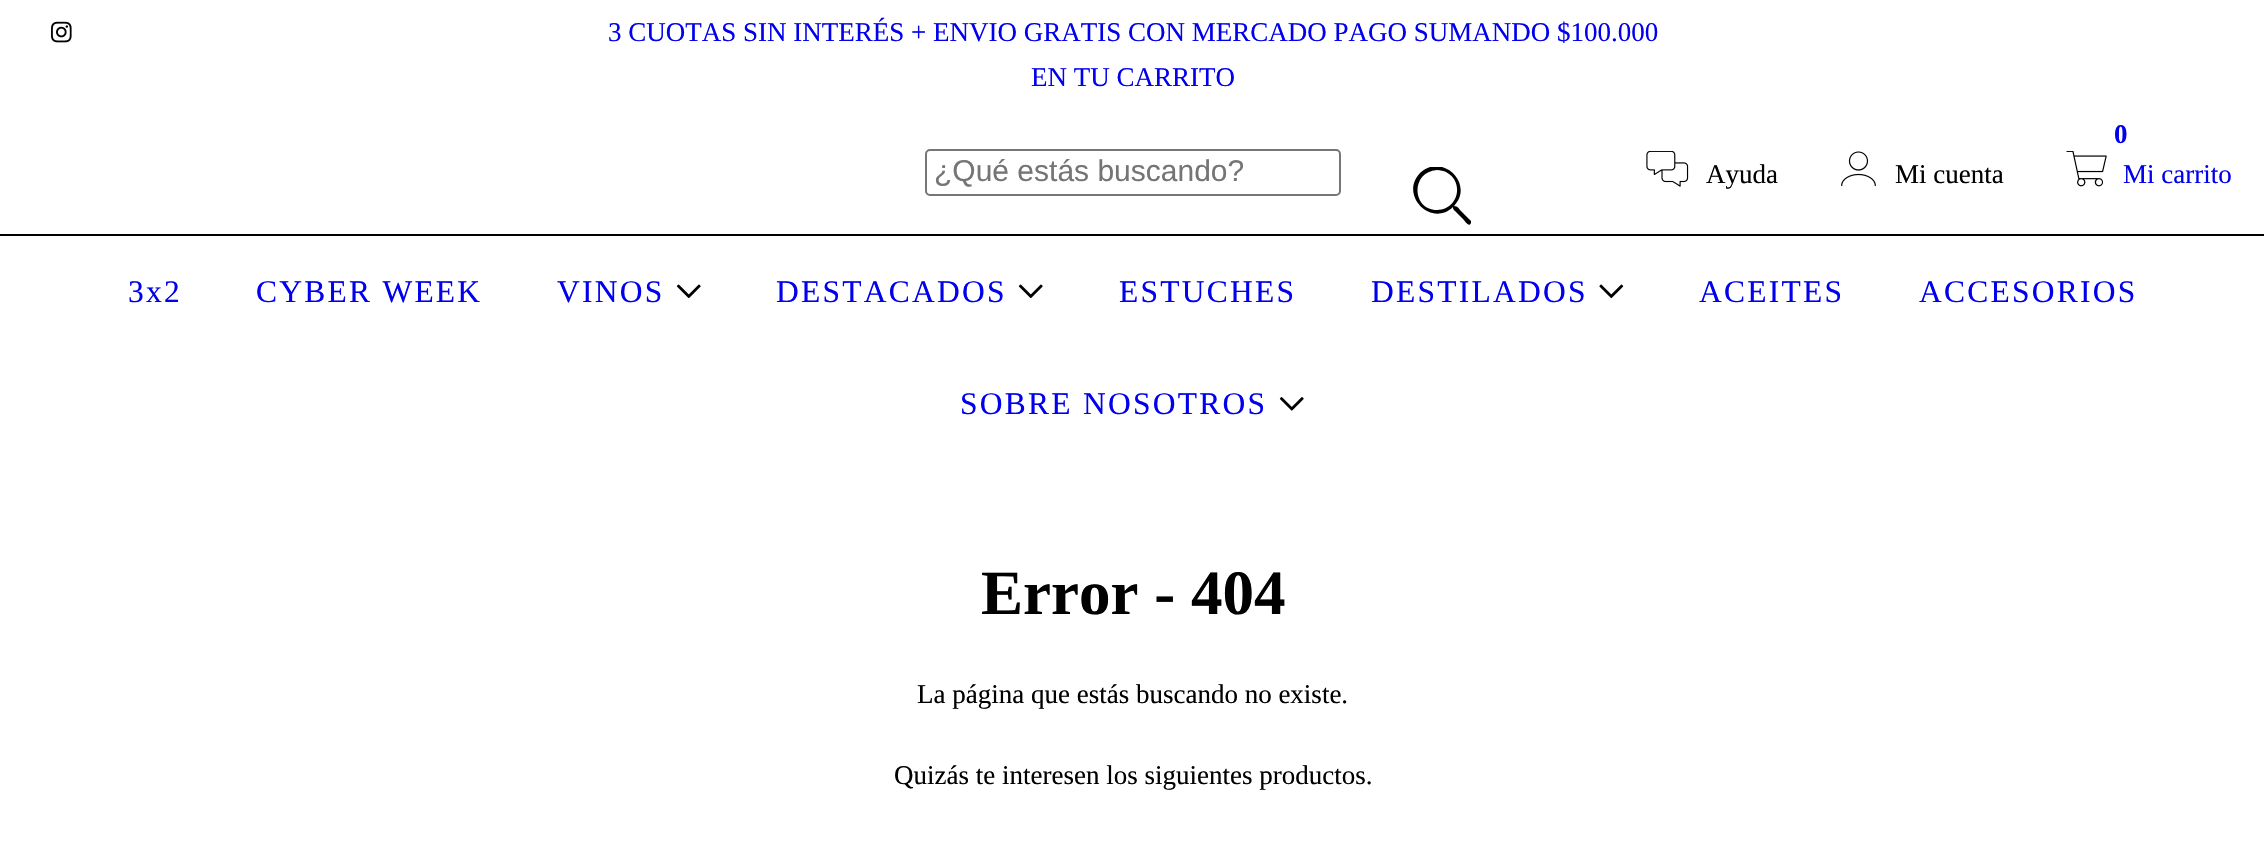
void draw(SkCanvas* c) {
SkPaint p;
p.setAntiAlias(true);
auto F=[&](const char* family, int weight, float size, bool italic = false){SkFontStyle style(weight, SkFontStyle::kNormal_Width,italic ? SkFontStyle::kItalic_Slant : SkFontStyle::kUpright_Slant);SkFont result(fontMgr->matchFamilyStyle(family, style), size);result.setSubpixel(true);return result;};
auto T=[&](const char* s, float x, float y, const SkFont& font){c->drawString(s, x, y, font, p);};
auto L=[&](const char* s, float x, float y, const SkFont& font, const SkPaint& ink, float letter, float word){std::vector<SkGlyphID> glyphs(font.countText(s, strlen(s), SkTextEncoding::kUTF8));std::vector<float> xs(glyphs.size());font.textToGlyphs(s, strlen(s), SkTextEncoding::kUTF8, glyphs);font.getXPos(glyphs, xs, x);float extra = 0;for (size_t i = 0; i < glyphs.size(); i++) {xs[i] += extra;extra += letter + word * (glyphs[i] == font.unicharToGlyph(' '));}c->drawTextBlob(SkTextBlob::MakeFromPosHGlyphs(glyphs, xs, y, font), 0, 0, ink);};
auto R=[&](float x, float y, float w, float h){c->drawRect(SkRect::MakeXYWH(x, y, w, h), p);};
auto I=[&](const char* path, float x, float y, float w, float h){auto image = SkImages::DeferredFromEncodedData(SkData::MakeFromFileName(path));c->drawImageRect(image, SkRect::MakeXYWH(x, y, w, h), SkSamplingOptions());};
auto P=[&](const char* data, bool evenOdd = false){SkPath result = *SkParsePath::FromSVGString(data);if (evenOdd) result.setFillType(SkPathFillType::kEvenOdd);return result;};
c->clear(0xffffffff);
I("1.png",51,21,21,22);
auto f1 = F("Liberation Serif",400,27);
p.setColor(0xff0000ee);
T("3 CUOTAS SIN INTERÉS + ENVIO GRATIS CON MERCADO PAGO SUMANDO $100.000",608,41,f1);
T("EN TU CARRITO",1031,86,f1);
p.setStroke(true);
p.setStrokeWidth(2);
p.setColor(0xff767676);
c->drawRoundRect(SkRect::MakeXYWH(926,150,414,45),4,4,p);
auto f2 = F("Liberation Sans",400,30);
p.setStroke(false);
p.setColor(0xff757575);
T("¿Qué estás buscando?",934,181,f2);
c->save();
c->clipRect(SkRect::MakeXYWH(1413,167,60,59));
p.setColor(0xff000000);
c->drawPath(P("M1471 221l-10-10c-2-2-3-5-7-5c21-22-12-54-34-33c-21 22 11 55 33 34c0 3 1 3 3 5l7 7c2 2 6 9 8 4zm-34-11c-25 0-27-38 0-40c3 0 7 1 9 2c19 10 12 38-9 38z"),p);
c->restore();
I("2.png",1646,151,43,36);
T("Ayuda",1706,183,f1);
I("3.png",1841,151,35,36);
T("Mi cuenta",1895,183,f1);
auto f3 = F("Liberation Serif",700,27);
p.setColor(0xff0000ee);
T("0",2114,143,f3);
I("4.png",2066,151,41,36);
T("Mi carrito",2123,183,f1);
p.setColor(0xff000000);
R(0,234,2264,2);
auto f4 = F("Liberation Serif",400,31.5);
p.setColor(0xff0000ee);
L("3x2",128,302,f4,p,2.25,0);
L("CYBER WEEK",256,302,f4,p,2.25,0);
L("VINOS",557,302,f4,p,2.25,0);
I("5.png",676,284,25,15);
L("DESTACADOS",776,302,f4,p,2.25,0);
I("5.png",1018,284,25,15);
L("ESTUCHES",1119,302,f4,p,2.25,0);
L("DESTILADOS",1371,302,f4,p,2.25,0);
I("6.png",1599,284,25,15);
L("ACEITES",1699,302,f4,p,2.25,0);
L("ACCESORIOS",1919,302,f4,p,2.25,0);
L("SOBRE NOSOTROS",960,414,f4,p,2.25,0);
I("7.png",1279,397,25,14);
auto f5 = F("Liberation Serif",700,63);
p.setColor(0xff000000);
T("Error - 404",981,614,f5);
T("La página que estás buscando no existe.",917,703,f1);
T("Quizás te interesen los siguientes productos.",894,784,f1);
}
